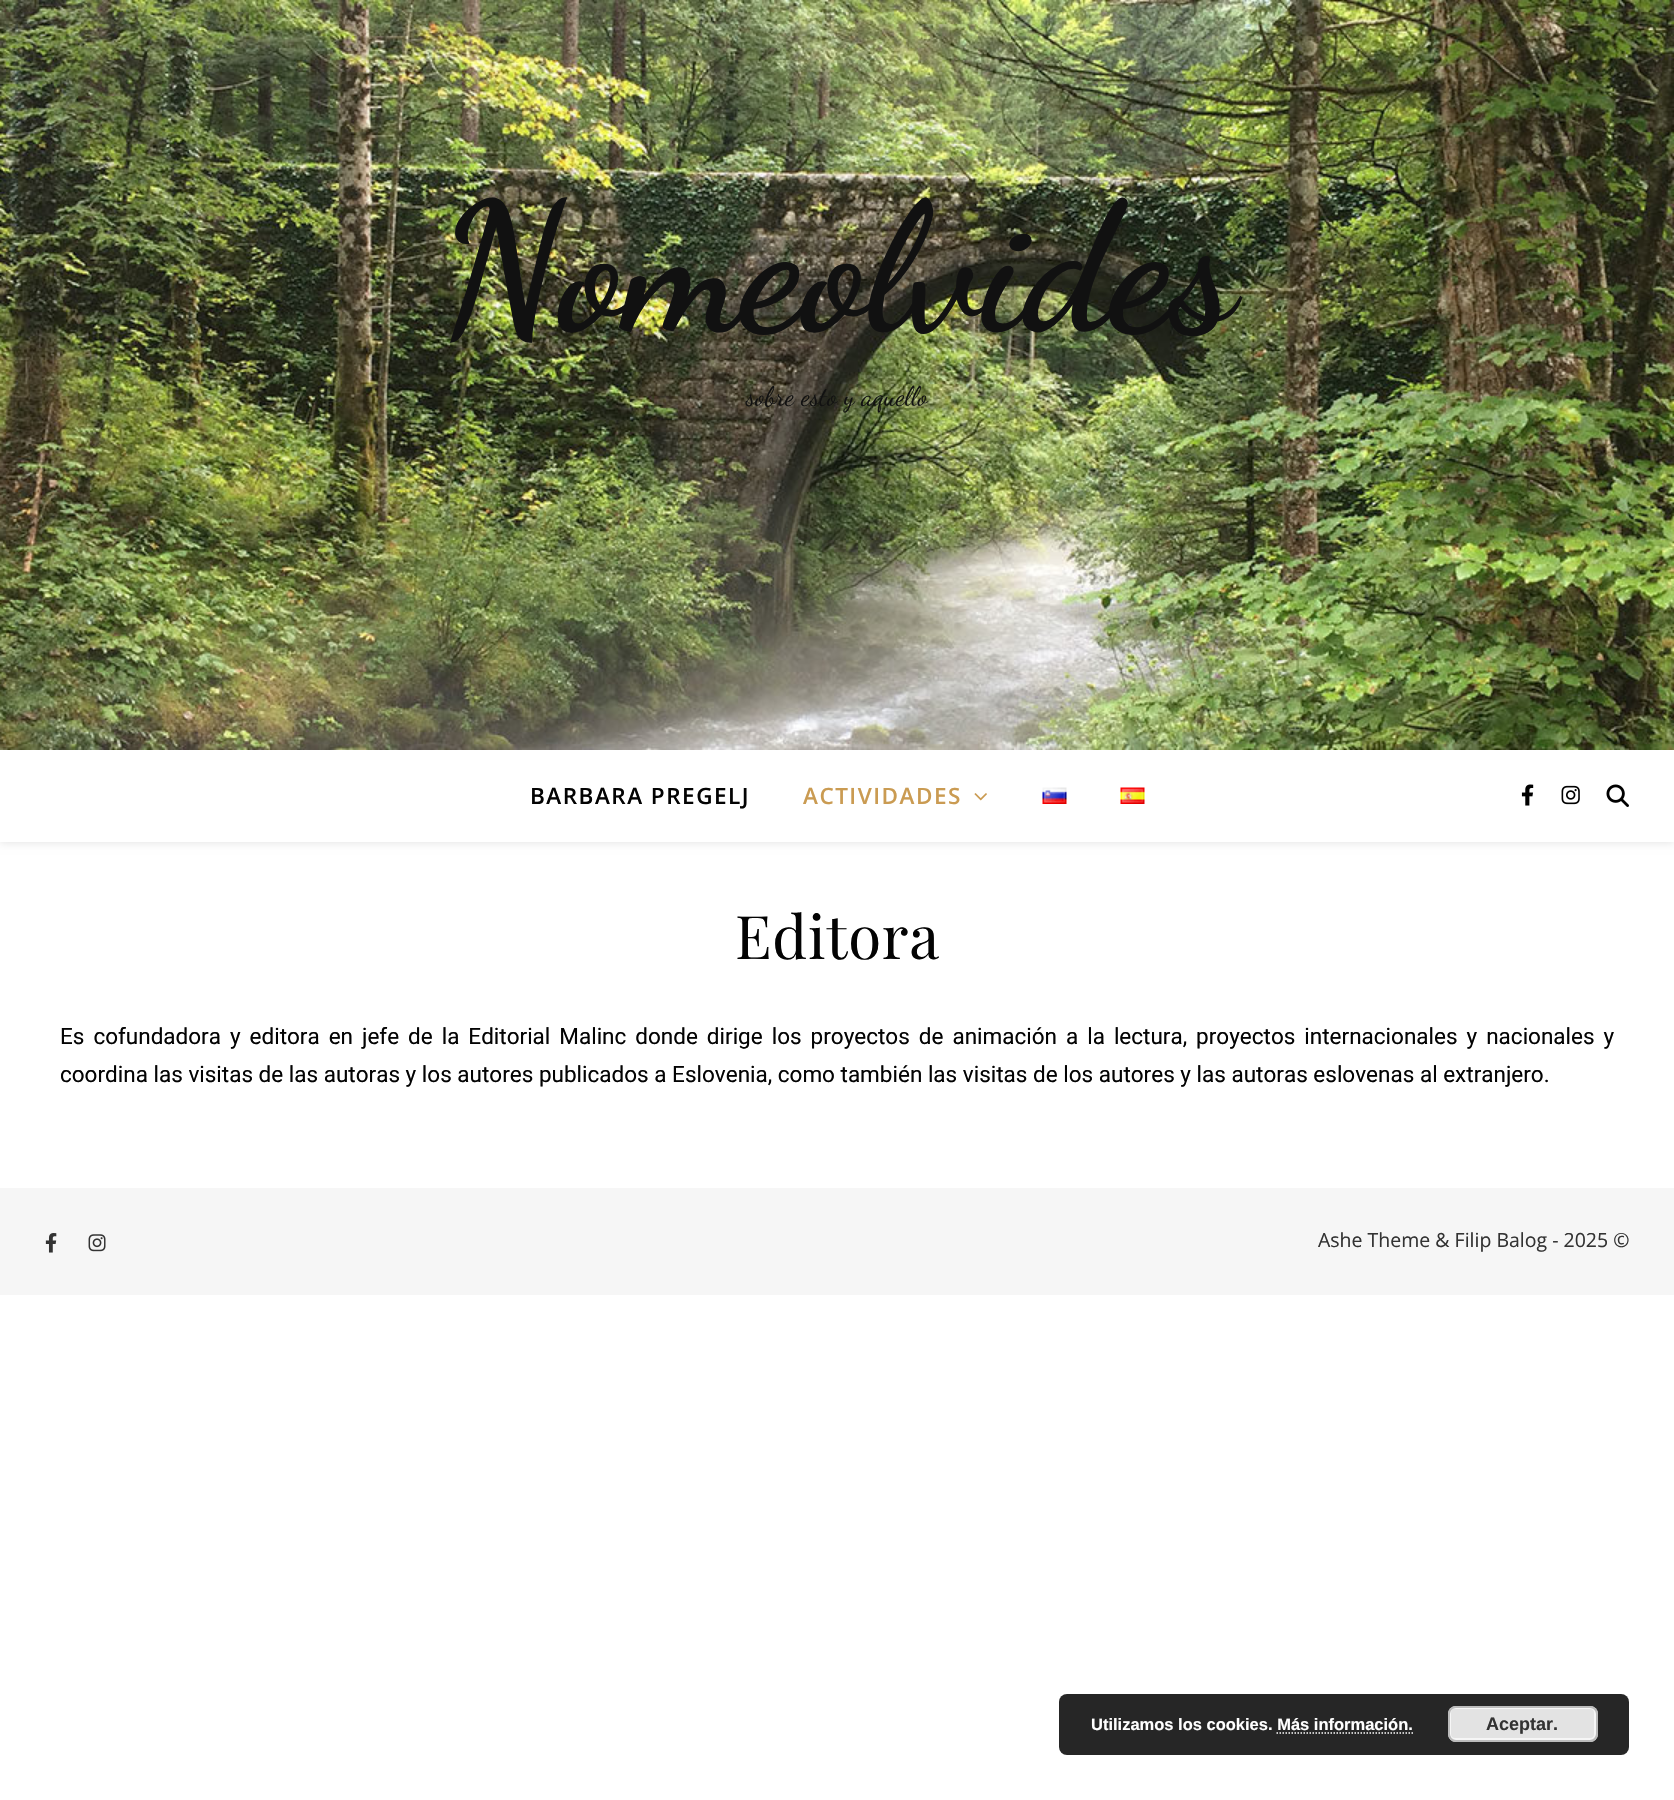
void draw(SkCanvas* c) {
SkPaint p;
p.setAntiAlias(true);
auto F=[&](const char* family, int weight, float size, bool italic = false){SkFontStyle style(weight, SkFontStyle::kNormal_Width,italic ? SkFontStyle::kItalic_Slant : SkFontStyle::kUpright_Slant);SkFont result(fontMgr->matchFamilyStyle(family, style), size);result.setSubpixel(true);return result;};
auto T=[&](const char* s, float x, float y, const SkFont& font){c->drawString(s, x, y, font, p);};
auto L=[&](const char* s, float x, float y, const SkFont& font, const SkPaint& ink, float letter, float word){std::vector<SkGlyphID> glyphs(font.countText(s, strlen(s), SkTextEncoding::kUTF8));std::vector<float> xs(glyphs.size());font.textToGlyphs(s, strlen(s), SkTextEncoding::kUTF8, glyphs);font.getXPos(glyphs, xs, x);float extra = 0;for (size_t i = 0; i < glyphs.size(); i++) {xs[i] += extra;extra += letter + word * (glyphs[i] == font.unicharToGlyph(' '));}c->drawTextBlob(SkTextBlob::MakeFromPosHGlyphs(glyphs, xs, y, font), 0, 0, ink);};
auto R=[&](float x, float y, float w, float h){c->drawRect(SkRect::MakeXYWH(x, y, w, h), p);};
auto Q=[&](float x, float y, float w, float h, float radius){c->drawRoundRect(SkRect::MakeXYWH(x, y, w, h), radius, radius, p);};
auto I=[&](const char* path, float x, float y, float w, float h){auto image = SkImages::DeferredFromEncodedData(SkData::MakeFromFileName(path));c->drawImageRect(image, SkRect::MakeXYWH(x, y, w, h), SkSamplingOptions());};
auto P=[&](const char* data, bool evenOdd = false){SkPath result = *SkParsePath::FromSVGString(data);if (evenOdd) result.setFillType(SkPathFillType::kEvenOdd);return result;};
c->clear(0xffffffff);
I("1.png",0,0,1674,750);
auto f1 = F("Dancing Script",700,180);
p.setColor(0xff111111);
L("Nomeolvides",440,327,f1,p,-1.5,0);
auto f2 = F("Dancing Script",400,27);
T("sobre esto y aquello",746,405,f2);
p.setColor(0x1a000000);
p.setMaskFilter(SkMaskFilter::MakeBlur(kNormal_SkBlurStyle, 4));
c->drawRect(SkRect::MakeXYWH(0,752,1674,91),p);
p.setMaskFilter(nullptr);
p.setColor(0xffffffff);
R(0,750,1674,92);
auto f3 = F("Open Sans",600,22.5);
p.setColor(0xff030303);
L("BARBARA PREGELJ",530,804,f3,p,1.5,0);
p.setColor(0xffca9b52);
L("ACTIVIDADES",803,804,f3,p,1.5,0);
I("2.png",974,793,13,8);
I("3.png",1042,787,25,17);
I("4.png",1120,787,25,17);
I("5.png",1521,784,13,22);
I("6.png",1561,785,19,20);
I("7.png",1606,784,23,23);
auto f4 = F("Playfair Display",400,60);
p.setColor(0xff030303);
L("Editora",735,959,f4,p,.75,0);
auto f5 = F("Roboto",400,22.5);
L("Es cofundadora y editora en jefe de la Editorial Malinc donde dirige los proyectos de animación a la lectura, proyectos internacionales y nacionales y",60,1044,f5,p,0,3.4);
T("coordina las visitas de las autoras y los autores publicados a Eslovenia, como también las visitas de los autores y las autoras eslovenas al extranjero.",60,1082,f5);
p.setColor(0xfff6f6f6);
R(0,1188,1674,107);
I("8.png",45,1233,12,20);
I("9.png",88,1234,18,18);
auto f6 = F("Open Sans",400,19.5);
p.setColor(0xff333333);
T("Ashe Theme & Filip Balog - 2025 ©",1318,1247,f6);
p.setColor(0xff262626);
Q(1059,1694,570,61,8);
auto f7 = F("Liberation Sans",700,16.5);
p.setColor(0xffffffff);
T("Utilizamos los cookies. Más información.",1091,1730,f7);
p.setColor(0xffe3e3e3);
Q(1448,1706,150,36,8);
p.setStroke(true);
p.setStrokeWidth(2);
p.setColor(0xfff6f6f6);
c->drawRoundRect(SkRect::MakeXYWH(1450,1708,145,31),5,5,p);
p.setColor(0xffbbbbbb);
c->drawRoundRect(SkRect::MakeXYWH(1449,1707,148,34),7,7,p);
auto f8 = F("Liberation Sans",700,18);
p.setStroke(false);
p.setColor(0xff333333);
T("Aceptar.",1486,1730,f8);
p.setStroke(true);
p.setStrokeWidth(1.5);
p.setColor(0xffffffff);
p.setPathEffect(SkDashPathEffect::Make({{1.5f,1.5f}}, 0));
c->drawPath(P("M1276.5 1733h136.5"),p);
p.setPathEffect(nullptr);
}
